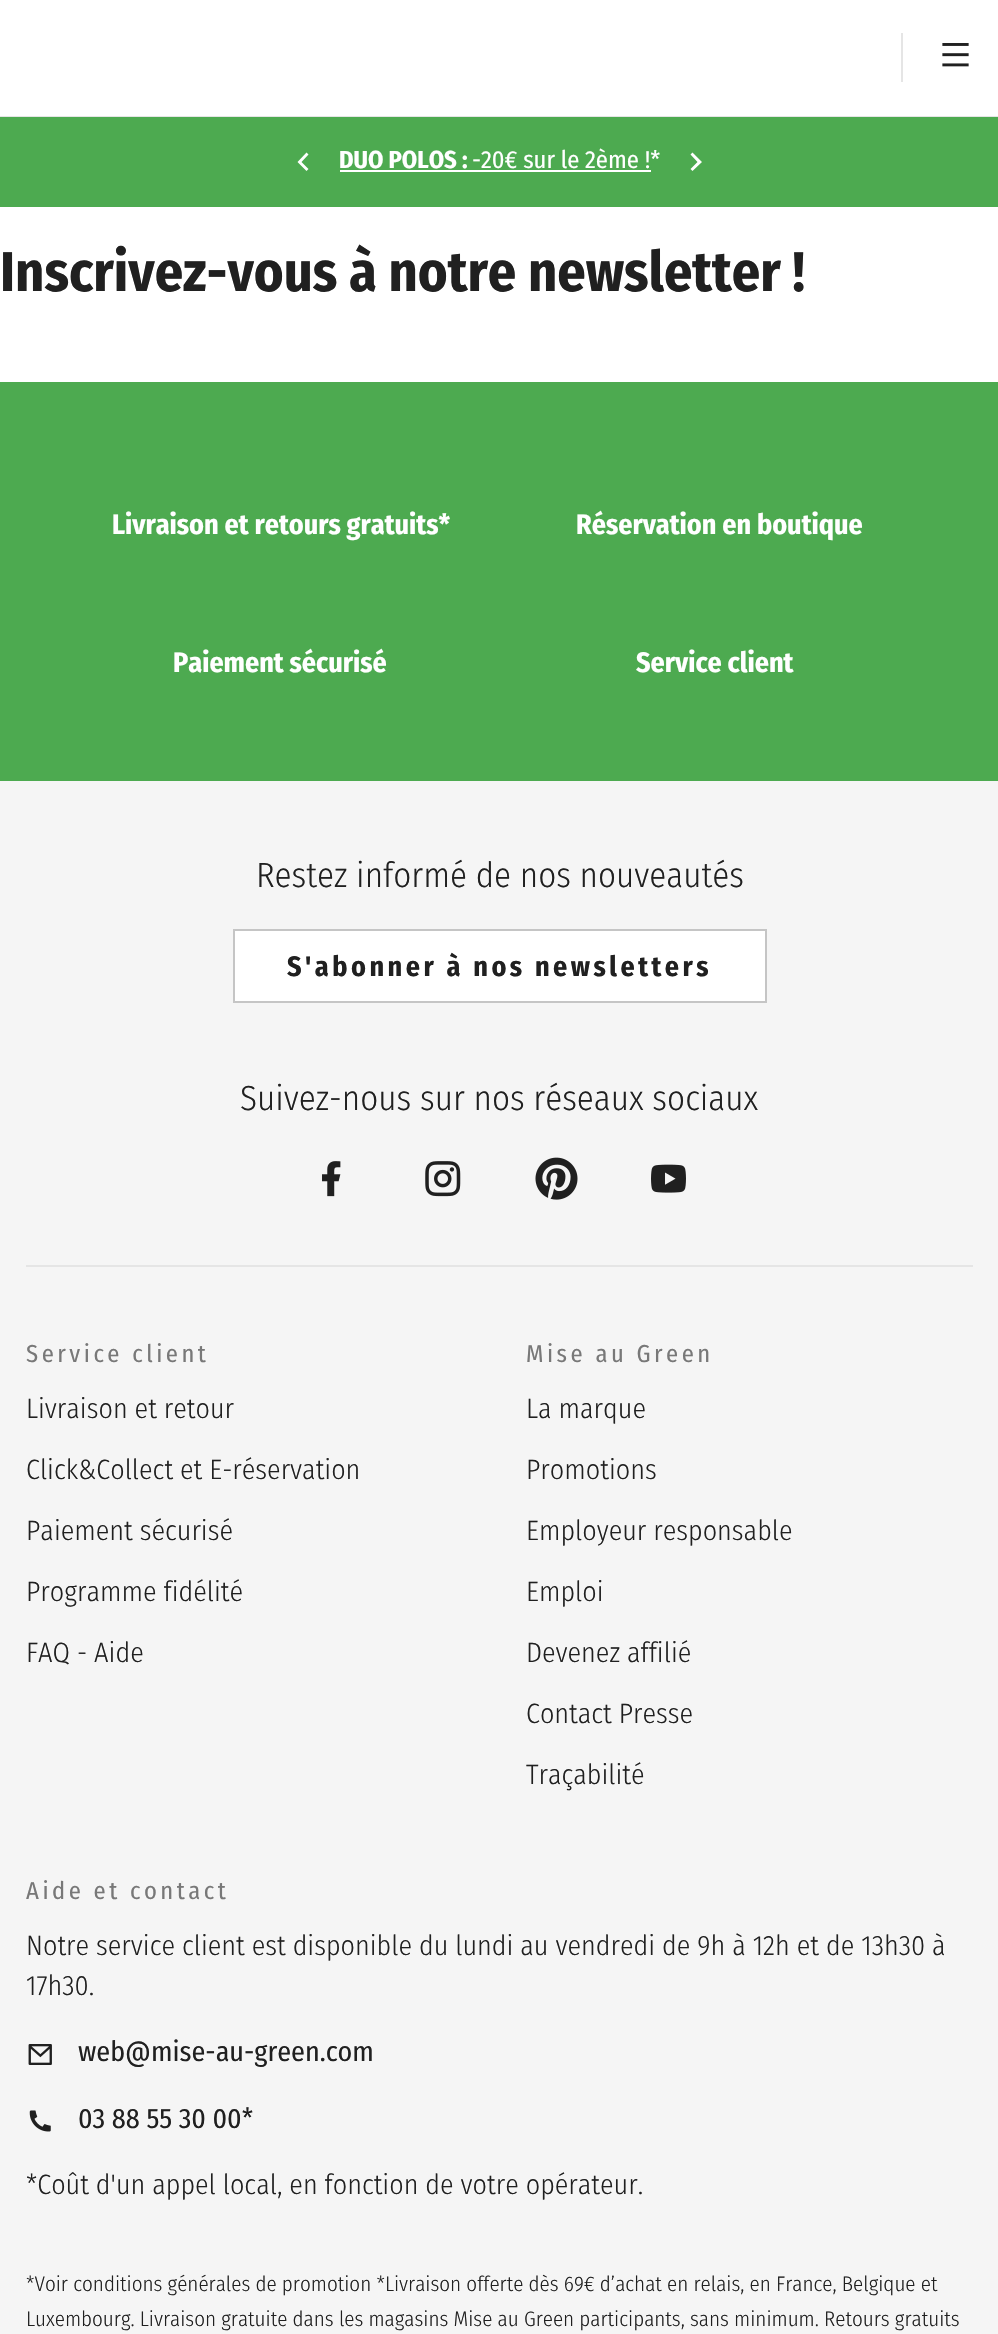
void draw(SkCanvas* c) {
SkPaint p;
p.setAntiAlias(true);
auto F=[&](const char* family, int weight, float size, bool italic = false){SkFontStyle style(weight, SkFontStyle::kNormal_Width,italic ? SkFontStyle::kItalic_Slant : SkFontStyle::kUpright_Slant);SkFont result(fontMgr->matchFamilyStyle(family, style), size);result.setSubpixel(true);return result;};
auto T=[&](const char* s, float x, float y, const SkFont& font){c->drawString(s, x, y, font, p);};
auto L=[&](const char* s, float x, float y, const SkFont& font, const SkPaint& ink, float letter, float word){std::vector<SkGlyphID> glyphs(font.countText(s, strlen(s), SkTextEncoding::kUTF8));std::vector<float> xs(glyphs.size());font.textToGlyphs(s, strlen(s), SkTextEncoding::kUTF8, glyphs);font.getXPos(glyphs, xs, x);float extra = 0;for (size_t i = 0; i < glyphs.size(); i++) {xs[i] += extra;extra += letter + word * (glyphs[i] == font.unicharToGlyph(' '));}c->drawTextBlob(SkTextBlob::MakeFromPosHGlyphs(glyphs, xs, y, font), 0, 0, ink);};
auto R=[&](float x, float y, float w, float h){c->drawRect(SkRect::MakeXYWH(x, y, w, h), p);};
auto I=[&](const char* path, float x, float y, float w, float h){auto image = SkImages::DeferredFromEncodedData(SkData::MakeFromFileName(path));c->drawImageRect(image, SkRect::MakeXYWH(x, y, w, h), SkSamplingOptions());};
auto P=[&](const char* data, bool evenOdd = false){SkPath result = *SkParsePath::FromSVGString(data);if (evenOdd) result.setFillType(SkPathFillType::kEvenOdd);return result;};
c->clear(0xffffffff);
p.setColor(0xffe5e5e5);
R(901,33,2,49);
I("1.png",942,43,27,24);
R(0,116,998,1);
p.setColor(0xff4daa50);
R(0,117,998,90);
p.setColor(0xffffffff);
c->drawPath(P("M301.5 162l7 7l-2 2l-9-9l9-9.5l2 2z"),p);
auto f1 = F("Fira Sans Condensed",700,24.5);
T("DUO POLOS :",339,168,f1);
R(340,170,311,2);
auto f2 = F("Fira Sans Condensed",400,24.5);
T("-20€ sur le 2ème !*",472,168,f2);
c->drawPath(P("M697.5 162l-7-7.5l2-2l9.5 9.5l-9.5 9l-2-2z"),p);
auto f3 = F("Fira Sans Condensed",700,56);
p.setColor(0xff202020);
T("Inscrivez-vous à notre newsletter !",0,291,f3);
p.setColor(0xfff5f5f5);
R(0,781,998,1553);
p.setColor(0xff4daa50);
R(0,382,998,399);
auto f4 = F("Fira Sans Condensed",700,28);
p.setColor(0xffffffff);
T("Livraison et retours gratuits*",112,534,f4);
T("Réservation en boutique",576,534,f4);
T("Paiement sécurisé",173,672,f4);
T("Service client",636,672,f4);
auto f5 = F("Fira Sans Condensed",300,35);
p.setColor(0xff202020);
T("Restez informé de nos nouveautés",256,887,f5);
p.setColor(0xffffffff);
c->drawRect(SkRect::MakeXYWH(234,930,532,72),p);
p.setStroke(true);
p.setStrokeWidth(2);
p.setColor(0xffc5c5c5);
c->drawRect(SkRect::MakeXYWH(234,930,532,72),p);
p.setStroke(false);
p.setColor(0xff202020);
L("S'abonner à nos newsletters",287,976,f4,p,3.5,0);
p.setColor(0xffe5e5e5);
R(26,1265,947,2);
p.setColor(0xff202020);
T("Suivez-nous sur nos réseaux sociaux",240,1110,f5);
I("2.png",322,1161,19,36);
I("3.png",425,1161,36,36);
I("4.png",535,1157,43,43);
I("5.png",651,1164,35,29);
p.setColor(0xff787878);
L("Service client",26,1362,f2,p,3.5,0);
auto f6 = F("Fira Sans Condensed",300,28);
p.setColor(0xff202020);
T("Livraison et retour",26,1418,f6);
T("Click&Collect et E-réservation",26,1479,f6);
T("Paiement sécurisé",26,1540,f6);
T("Programme fidélité",26,1601,f6);
T("FAQ - Aide",26,1662,f6);
p.setColor(0xff787878);
L("Mise au Green",526,1362,f2,p,3.5,0);
p.setColor(0xff202020);
T("La marque",526,1418,f6);
T("Promotions",526,1479,f6);
T("Employeur responsable",526,1540,f6);
T("Emploi",526,1601,f6);
T("Devenez affilié",526,1662,f6);
T("Contact Presse",526,1723,f6);
T("Traçabilité",526,1784,f6);
p.setColor(0xff787878);
L("Aide et contact",26,1899,f2,p,3.5,0);
p.setColor(0xff202020);
T("Notre service client est disponible du lundi au vendredi de 9h à 12h et de 13h30 à",26,1955,f6);
T("17h30.",26,1995,f6);
I("6.png",28,2044,24,21);
auto f7 = F("Fira Sans Condensed",400,28);
T("web@mise-au-green.com",78,2061,f7);
I("7.png",29,2110,22,22);
T("03 88 55 30 00*",78,2128,f7);
T("*Coût d'un appel local, en fonction de votre opérateur.",26,2194,f6);
auto f8 = F("Fira Sans Condensed",300,21);
T("*Voir conditions générales de promotion *Livraison offerte dès 69€ d’achat en relais, en France, Belgique et",26,2291,f8);
T("Luxembourg. Livraison gratuite dans les magasins Mise au Green participants, sans minimum. Retours gratuits",26,2326,f8);
}
